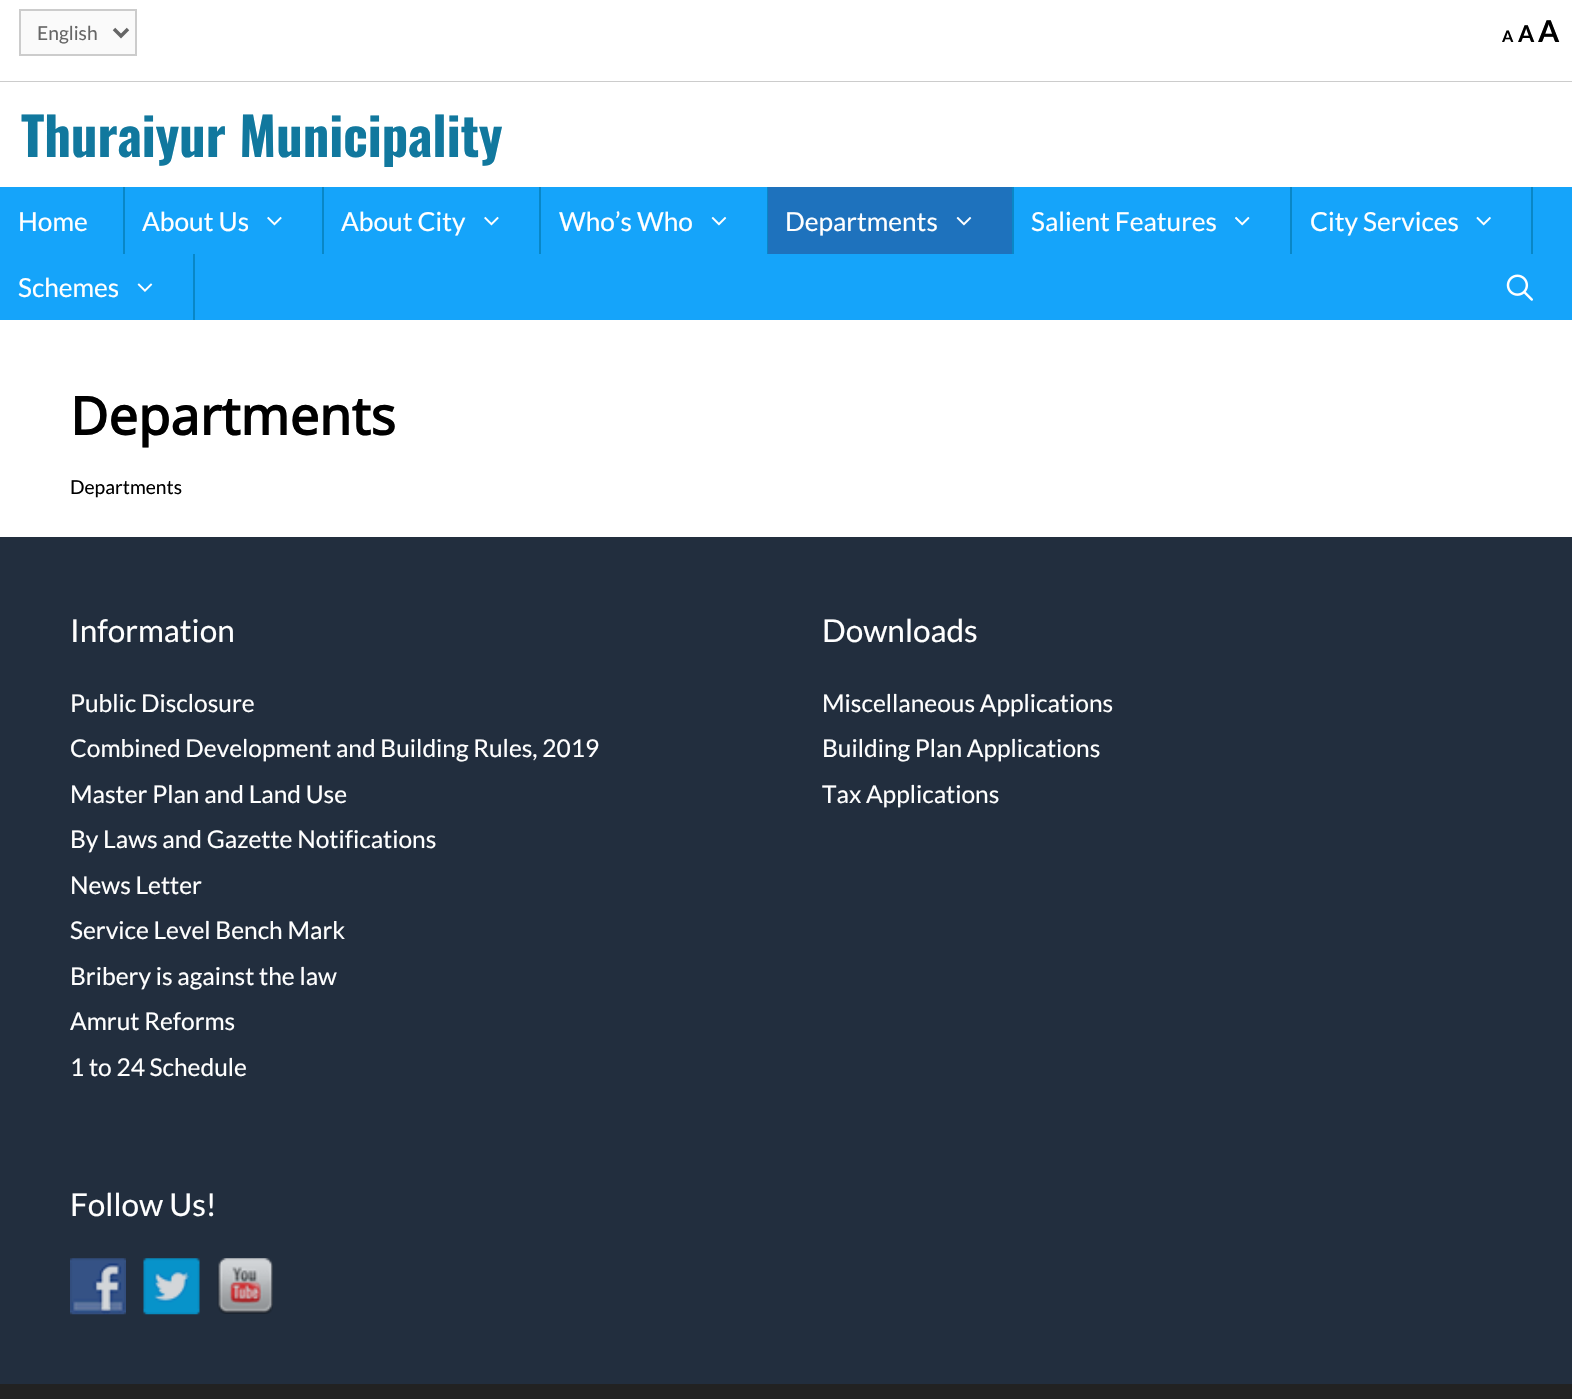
void draw(SkCanvas* c) {
SkPaint p;
p.setAntiAlias(true);
auto F=[&](const char* family, int weight, float size, bool italic = false){SkFontStyle style(weight, SkFontStyle::kNormal_Width,italic ? SkFontStyle::kItalic_Slant : SkFontStyle::kUpright_Slant);SkFont result(fontMgr->matchFamilyStyle(family, style), size);result.setSubpixel(true);return result;};
auto T=[&](const char* s, float x, float y, const SkFont& font){c->drawString(s, x, y, font, p);};
auto R=[&](float x, float y, float w, float h){c->drawRect(SkRect::MakeXYWH(x, y, w, h), p);};
auto I=[&](const char* path, float x, float y, float w, float h){auto image = SkImages::DeferredFromEncodedData(SkData::MakeFromFileName(path));c->drawImageRect(image, SkRect::MakeXYWH(x, y, w, h), SkSamplingOptions());};
auto P=[&](const char* data, bool evenOdd = false){SkPath result = *SkParsePath::FromSVGString(data);if (evenOdd) result.setFillType(SkPathFillType::kEvenOdd);return result;};
c->clear(0xffffffff);
p.setColor(0xffcccccc);
R(0,81,1572,1);
p.setColor(0xfffafafa);
c->drawRect(SkRect::MakeXYWH(20,10,116,45),p);
p.setStroke(true);
p.setStrokeWidth(2);
p.setColor(0xffcccccc);
c->drawRect(SkRect::MakeXYWH(20,10,116,45),p);
p.setStrokeWidth(3.5);
p.setColor(0xff666666);
c->drawPath(P("M114 29l7 7l7-7"),p);
auto f1 = F("Lato",400,19.25);
p.setStroke(false);
T("English",37,40,f1);
auto f2 = F("Lato",700,16);
p.setColor(0xff000000);
T("A",1502,42,f2);
auto f3 = F("Lato",700,23);
T("A",1518,42,f3);
auto f4 = F("Lato",700,30);
T("A",1538,42,f4);
auto f5 = F("Oswald",700,52.5);
p.setColor(0xff11789e);
T("Thuraiyur Municipality",21,157,f5);
p.setColor(0xff15a4fa);
R(0,187,1572,133);
p.setColor(0xff0987c7);
R(123,187,2,67);
auto f6 = F("Lato",400,26.25);
p.setColor(0xffffffff);
T("Home",18,231,f6);
p.setColor(0xff0987c7);
R(322,187,2,67);
p.setColor(0xffffffff);
T("About Us",142,231,f6);
I("1.png",267,216,15,10);
p.setColor(0xff0987c7);
R(539,187,2,67);
p.setColor(0xffffffff);
T("About City",341,231,f6);
I("1.png",484,216,15,10);
p.setColor(0xff0987c7);
R(767,187,1,67);
p.setColor(0xffffffff);
T("Who’s Who",559,231,f6);
I("2.png",711,217,16,9);
p.setColor(0xff0987c7);
R(1012,187,2,67);
p.setColor(0xff1e72bd);
R(768,187,244,67);
p.setColor(0xffffffff);
T("Departments",785,231,f6);
I("3.png",956,217,16,9);
p.setColor(0xff0987c7);
R(1290,187,2,67);
p.setColor(0xffffffff);
T("Salient Features",1031,231,f6);
I("4.png",1235,216,15,10);
p.setColor(0xff0987c7);
R(1531,187,2,67);
p.setColor(0xffffffff);
T("City Services",1310,231,f6);
I("5.png",1476,216,15,10);
p.setColor(0xff0987c7);
R(193,254,2,66);
p.setColor(0xffffffff);
T("Schemes",18,297,f6);
I("6.png",137,283,16,9);
I("7.png",1506,274,27,27);
auto f7 = F("Noto Sans",700,52.5);
p.setColor(0xff000000);
T("Departments",70,435,f7);
T("Departments",70,494,f1);
p.setColor(0xff222e3e);
R(0,537,1572,847);
auto f8 = F("Lato",400,31.5);
p.setColor(0xffffffff);
T("Information",70,642,f8);
auto f9 = F("Lato",400,24.5);
T("Public Disclosure",70,712,f9);
T("Combined Development and Building Rules, 2019",70,757,f9);
T("Master Plan and Land Use",70,803,f9);
T("By Laws and Gazette Notifications",70,848,f9);
T("News Letter",70,894,f9);
T("Service Level Bench Mark",70,939,f9);
T("Bribery is against the law",70,985,f9);
T("Amrut Reforms",70,1030,f9);
T("1 to 24 Schedule",70,1076,f9);
T("Downloads",822,642,f8);
T("Miscellaneous Applications",822,712,f9);
T("Building Plan Applications",822,757,f9);
T("Tax Applications",822,803,f9);
T("Follow Us!",70,1216,f8);
I("8.png",70,1258,56,57);
I("9.png",143,1258,57,57);
I("10.png",217,1258,56,56);
p.setColor(0xff222222);
R(0,1384,1572,15);
}
